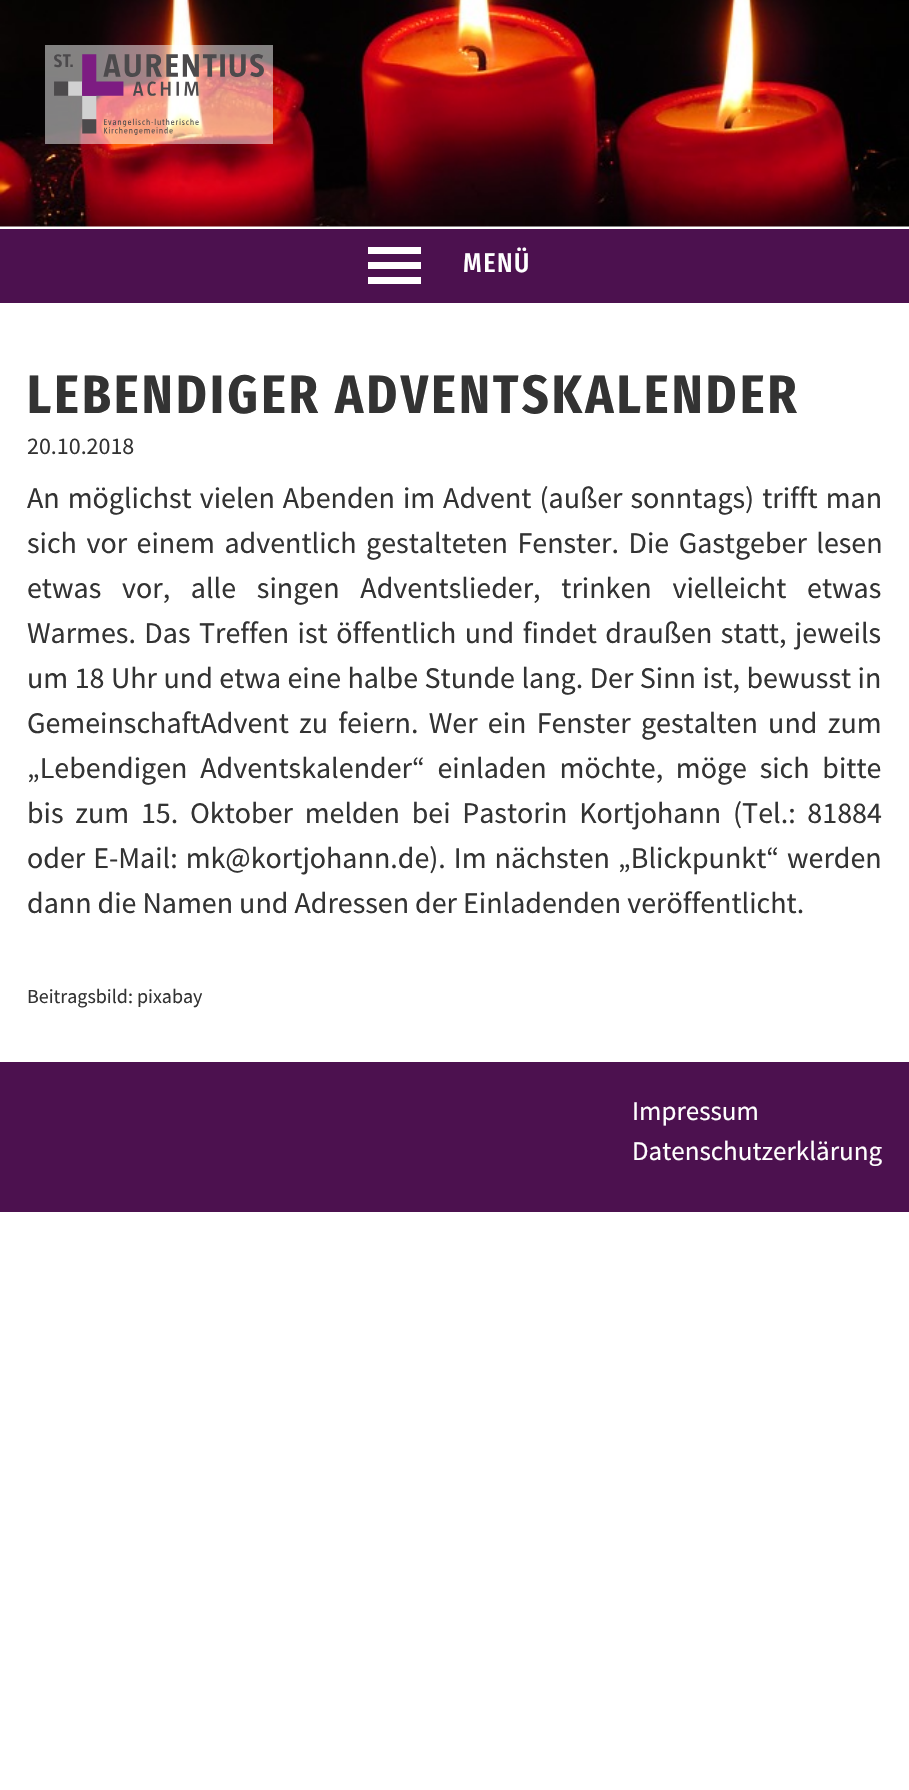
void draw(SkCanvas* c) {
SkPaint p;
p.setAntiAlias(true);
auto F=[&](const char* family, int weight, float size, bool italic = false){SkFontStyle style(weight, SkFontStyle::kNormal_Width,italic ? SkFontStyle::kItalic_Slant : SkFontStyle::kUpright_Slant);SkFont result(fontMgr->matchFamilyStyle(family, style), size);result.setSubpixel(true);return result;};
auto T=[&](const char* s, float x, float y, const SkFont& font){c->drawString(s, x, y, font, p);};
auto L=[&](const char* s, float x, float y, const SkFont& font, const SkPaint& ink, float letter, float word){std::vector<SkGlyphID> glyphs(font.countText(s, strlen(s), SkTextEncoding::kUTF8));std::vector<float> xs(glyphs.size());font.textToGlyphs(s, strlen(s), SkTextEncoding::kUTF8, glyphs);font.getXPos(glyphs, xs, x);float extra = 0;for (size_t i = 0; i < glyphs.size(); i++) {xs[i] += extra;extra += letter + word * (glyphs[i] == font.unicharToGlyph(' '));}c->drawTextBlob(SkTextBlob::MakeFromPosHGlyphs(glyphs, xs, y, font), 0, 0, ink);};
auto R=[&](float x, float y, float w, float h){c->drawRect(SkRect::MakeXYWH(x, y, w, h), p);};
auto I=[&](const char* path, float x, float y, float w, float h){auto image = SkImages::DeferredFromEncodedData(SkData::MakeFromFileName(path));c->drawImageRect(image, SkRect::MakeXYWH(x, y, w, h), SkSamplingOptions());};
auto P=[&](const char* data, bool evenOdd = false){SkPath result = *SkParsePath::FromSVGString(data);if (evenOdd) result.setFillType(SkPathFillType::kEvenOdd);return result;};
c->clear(0xffffffff);
I("1.png",0,0,909,227);
p.setColor(0x80ffffff);
R(45,45,228,99);
I("2.png",54,54,210,81);
p.setColor(0xff4c114f);
R(0,229,909,74);
p.setColor(0xffffffff);
c->drawPath(P("M368 284h53v-7h-53zm0-37v7h53v-7zm0 22h53v-7h-53z"),p);
auto f1 = F("Fira Sans Condensed",500,27);
L("MENÜ",463,272,f1,p,1.5,0);
auto f2 = F("Fira Sans Condensed",700,54);
p.setColor(0xff333333);
L("LEBENDIGER ADVENTSKALENDER",27,413,f2,p,3.25,0);
auto f3 = F("Source Sans Pro",400,24);
T("20.10.2018",27,454,f3);
auto f4 = F("Source Sans Pro",400,30);
L("An möglichst vielen Abenden im Advent (außer sonntags) trifft man",27,508,f4,p,0,2);
L("sich vor einem adventlich gestalteten Fenster. Die Gastgeber lesen",27,553,f4,p,0,3.5);
L("etwas vor, alle singen Adventslieder, trinken vielleicht etwas",27,598,f4,p,0,14.75);
L("Warmes. Das Treffen ist öffentlich und findet draußen statt, jeweils",27,643,f4,p,0,2.5);
L("um 18 Uhr und etwa eine halbe Stunde lang. Der Sinn ist, bewusst in",27,688,f4,p,0,.5);
L("GemeinschaftAdvent zu feiern. Wer ein Fenster gestalten und zum",27,733,f4,p,0,4.25);
L("„Lebendigen Adventskalender“ einladen möchte, möge sich bitte",27,778,f4,p,0,6.75);
L("bis zum 15. Oktober melden bei Pastorin Kortjohann (Tel.: 81884",27,823,f4,p,0,5.75);
L("oder E-Mail: mk@kortjohann.de). Im nächsten „Blickpunkt“ werden",27,868,f4,p,0,2);
T("dann die Namen und Adressen der Einladenden veröffentlicht.",27,913,f4);
auto f5 = F("Source Sans Pro",400,20);
T("Beitragsbild: pixabay",27,1003,f5);
p.setColor(0xff4c114f);
R(0,1062,909,150);
auto f6 = F("Source Sans Pro",400,27);
p.setColor(0xffffffff);
T("Impressum",632,1120,f6);
T("Datenschutzerklärung",632,1160,f6);
}
